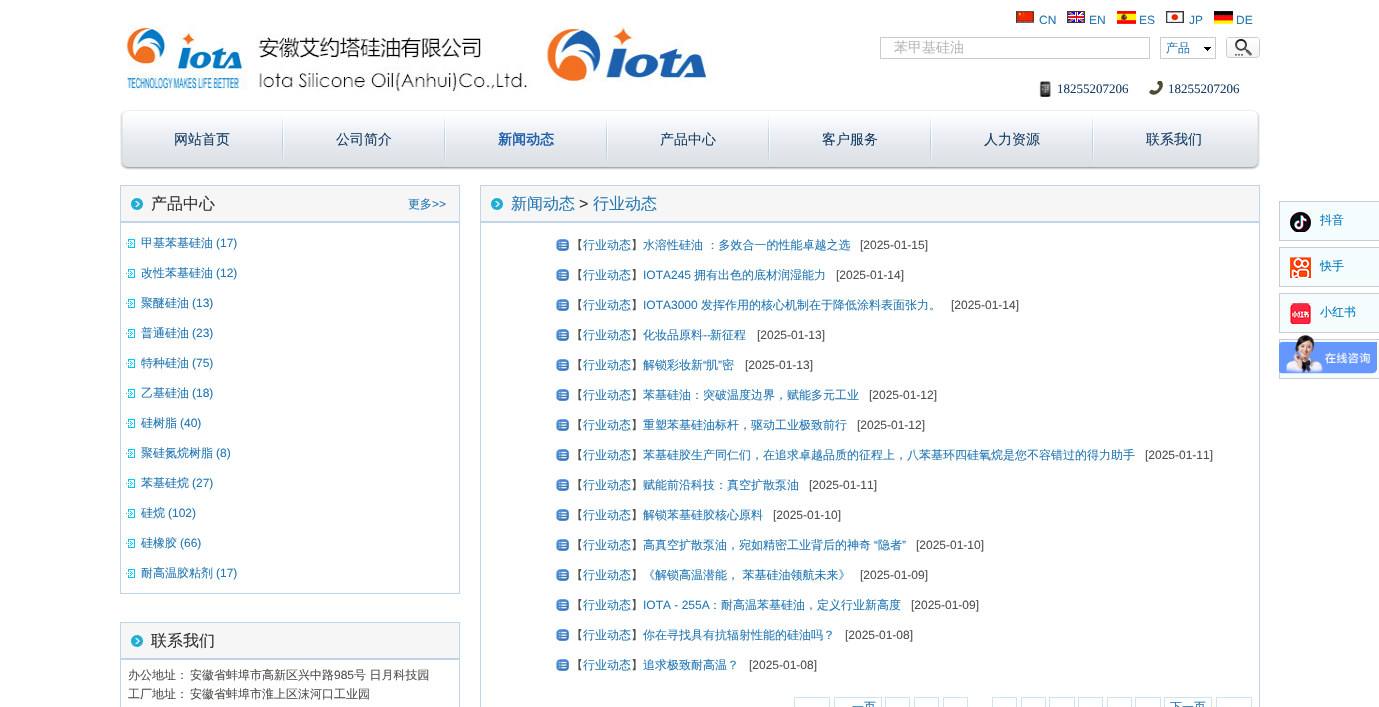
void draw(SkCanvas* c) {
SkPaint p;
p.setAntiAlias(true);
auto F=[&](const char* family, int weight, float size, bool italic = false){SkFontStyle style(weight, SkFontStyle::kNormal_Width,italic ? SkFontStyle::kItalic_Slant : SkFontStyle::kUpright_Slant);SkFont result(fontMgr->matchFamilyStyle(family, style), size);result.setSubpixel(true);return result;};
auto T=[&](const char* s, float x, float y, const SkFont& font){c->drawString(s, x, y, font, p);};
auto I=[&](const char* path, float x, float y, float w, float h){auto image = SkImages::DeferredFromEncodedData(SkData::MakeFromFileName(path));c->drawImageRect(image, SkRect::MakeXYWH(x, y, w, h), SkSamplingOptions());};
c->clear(0xffffffff);
I("1.png",122,26,591,71);
I("2.png",1016,11,18,12);
auto f1 = F("Liberation Sans",400,12);
p.setColor(0xff2477b3);
T("CN",1039,24,f1);
I("3.png",1067,11,18,12);
T("EN",1089,24,f1);
I("4.png",1117,11,19,13);
T("ES",1139,24,f1);
I("5.png",1166,11,18,12);
T("JP",1189,24,f1);
I("6.png",1214,11,19,13);
T("DE",1236,24,f1);
p.setStroke(true);
p.setStrokeWidth(1);
p.setColor(0xffcccccc);
c->drawRect(SkRect::MakeXYWH(880.5,37.5,269,21),p);
auto f2 = F("WenQuanYi Zen Hei",500,14);
p.setStroke(false);
p.setColor(0xffb9b9b9);
T("苯甲基硅油",894,52,f2);
p.setStroke(true);
p.setColor(0xffcccccc);
c->drawRect(SkRect::MakeXYWH(1160.5,37.5,55,21),p);
auto f3 = F("WenQuanYi Zen Hei",500,12);
p.setStroke(false);
p.setColor(0xff2477b3);
T("产品",1166,52,f3);
I("7.png",1204,47,7,4);
I("8.png",1226,37,34,21);
I("9.png",1039,81,12,16);
auto f4 = F("Liberation Serif",400,13);
p.setColor(0xff163d64);
T("18255207206",1057,93,f4);
I("10.png",1149,81,15,14);
T("18255207206",1168,93,f4);
I("11.png",120,110,1140,60);
I("12.png",282,116,2,49);
T("网站首页",174,144,f2);
I("12.png",444,116,2,49);
T("公司简介",336,144,f2);
I("12.png",606,116,2,49);
auto f5 = F("WenQuanYi Zen Hei",700,14);
p.setColor(0xff2262ad);
T("新闻动态",498,144,f5);
I("12.png",768,116,2,49);
p.setColor(0xff163d64);
T("产品中心",660,144,f2);
I("12.png",930,116,2,49);
T("客户服务",822,144,f2);
I("12.png",1092,116,2,49);
T("人力资源",984,144,f2);
T("联系我们",1146,144,f2);
p.setColor(0xfff6f6f6);
c->drawRect(SkRect::MakeXYWH(120.5,185.5,339,36),p);
p.setStroke(true);
p.setColor(0xffc2d4e8);
c->drawRect(SkRect::MakeXYWH(120.5,185.5,339,36),p);
I("13.png",131,197,12,14);
auto f6 = F("WenQuanYi Zen Hei",500,16);
p.setStroke(false);
p.setColor(0xff333333);
T("产品中心",151,209,f6);
p.setColor(0xff2477b3);
T("更多",408,208,f3);
T(">>",432,208,f1);
p.setStroke(true);
p.setColor(0xffc2d4e8);
c->drawRect(SkRect::MakeXYWH(120.5,222.5,339,371),p);
I("14.png",126,239,9,9);
p.setStroke(false);
p.setColor(0xff2477b3);
T("甲基苯基硅油",141,247,f3);
T("(17)",216,247,f1);
I("14.png",126,269,9,9);
T("改性苯基硅油",141,277,f3);
T("(12)",216,277,f1);
I("14.png",126,299,9,9);
T("聚醚硅油",141,307,f3);
T("(13)",192,307,f1);
I("14.png",126,329,9,9);
T("普通硅油",141,337,f3);
T("(23)",192,337,f1);
I("14.png",126,359,9,9);
T("特种硅油",141,367,f3);
T("(75)",192,367,f1);
I("14.png",126,389,9,9);
T("乙基硅油",141,397,f3);
T("(18)",192,397,f1);
I("14.png",126,419,9,9);
T("硅树脂",141,427,f3);
T("(40)",180,427,f1);
I("14.png",126,449,9,9);
T("聚硅氮烷树脂",141,457,f3);
T("(8)",216,457,f1);
I("14.png",126,479,9,9);
T("苯基硅烷",141,487,f3);
T("(27)",192,487,f1);
I("14.png",126,509,9,9);
T("硅烷",141,517,f3);
T("(102)",168,517,f1);
I("14.png",126,539,9,9);
T("硅橡胶",141,547,f3);
T("(66)",180,547,f1);
I("14.png",126,569,9,9);
T("耐高温胶粘剂",141,577,f3);
T("(17)",216,577,f1);
p.setColor(0xfff6f6f6);
c->drawRect(SkRect::MakeXYWH(120.5,622.5,339,36),p);
p.setStroke(true);
p.setColor(0xffc2d4e8);
c->drawRect(SkRect::MakeXYWH(120.5,622.5,339,36),p);
I("13.png",131,634,12,14);
p.setStroke(false);
p.setColor(0xff333333);
T("联系我们",151,646,f6);
p.setStroke(true);
p.setColor(0xffc2d4e8);
c->drawRect(SkRect::MakeXYWH(120.5,659.5,339,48),p);
p.setStroke(false);
p.setColor(0xff51504d);
T("办公地址：",128,679,f3);
T("安徽省蚌埠市高新区兴中路",190,679,f3);
T("985",334,679,f1);
T("号 日月科技园",354,679,f3);
T("工厂地址：",128,698,f3);
T("安徽省蚌埠市淮上区沫河口工业园",190,698,f3);
p.setColor(0xfff6f6f6);
c->drawRect(SkRect::MakeXYWH(480.5,185.5,779,36),p);
p.setStroke(true);
p.setColor(0xffc2d4e8);
c->drawRect(SkRect::MakeXYWH(480.5,185.5,779,36),p);
I("13.png",491,197,12,14);
p.setStroke(false);
p.setColor(0xff2477b3);
T("新闻动态",511,209,f6);
auto f7 = F("Liberation Sans",400,16);
p.setColor(0xff333333);
T(">",579,209,f7);
p.setColor(0xff2477b3);
T("行业动态",593,209,f6);
p.setStroke(true);
p.setColor(0xffc2d4e8);
c->drawRect(SkRect::MakeXYWH(480.5,222.5,779,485),p);
I("15.png",556,239,13,12);
p.setStroke(false);
p.setColor(0xff51504d);
T("【",571,249,f3);
p.setColor(0xff2477b3);
T("行业动态",583,249,f3);
p.setColor(0xff51504d);
T("】",631,249,f3);
p.setColor(0xff2477b3);
T("水溶性硅油 ：多效合一的性能卓越之选",643,249,f3);
p.setColor(0xff51504d);
T("[2025-01-15]",860,249,f1);
I("15.png",556,269,13,12);
T("【",571,279,f3);
p.setColor(0xff2477b3);
T("行业动态",583,279,f3);
p.setColor(0xff51504d);
T("】",631,279,f3);
p.setColor(0xff2477b3);
T("IOTA245",643,279,f1);
T("拥有出色的底材润湿能力",694,279,f3);
p.setColor(0xff51504d);
T("[2025-01-14]",836,279,f1);
I("15.png",556,299,13,12);
T("【",571,309,f3);
p.setColor(0xff2477b3);
T("行业动态",583,309,f3);
p.setColor(0xff51504d);
T("】",631,309,f3);
p.setColor(0xff2477b3);
T("IOTA3000",643,309,f1);
T("发挥作用的核心机制在于降低涂料表面张力。",701,309,f3);
p.setColor(0xff51504d);
T("[2025-01-14]",951,309,f1);
I("15.png",556,329,13,12);
T("【",571,339,f3);
p.setColor(0xff2477b3);
T("行业动态",583,339,f3);
p.setColor(0xff51504d);
T("】",631,339,f3);
p.setColor(0xff2477b3);
T("化妆品原料",643,339,f3);
T("--",703,339,f1);
T("新征程",710,339,f3);
p.setColor(0xff51504d);
T("[2025-01-13]",757,339,f1);
I("15.png",556,359,13,12);
T("【",571,369,f3);
p.setColor(0xff2477b3);
T("行业动态",583,369,f3);
p.setColor(0xff51504d);
T("】",631,369,f3);
p.setColor(0xff2477b3);
T("解锁彩妆新",643,369,f3);
T("“",703,369,f1);
T("肌",706,369,f3);
T("”",718,369,f1);
T("密",722,369,f3);
p.setColor(0xff51504d);
T("[2025-01-13]",745,369,f1);
I("15.png",556,389,13,12);
T("【",571,399,f3);
p.setColor(0xff2477b3);
T("行业动态",583,399,f3);
p.setColor(0xff51504d);
T("】",631,399,f3);
p.setColor(0xff2477b3);
T("苯基硅油：突破温度边界，赋能多元工业",643,399,f3);
p.setColor(0xff51504d);
T("[2025-01-12]",869,399,f1);
I("15.png",556,419,13,12);
T("【",571,429,f3);
p.setColor(0xff2477b3);
T("行业动态",583,429,f3);
p.setColor(0xff51504d);
T("】",631,429,f3);
p.setColor(0xff2477b3);
T("重塑苯基硅油标杆，驱动工业极致前行",643,429,f3);
p.setColor(0xff51504d);
T("[2025-01-12]",857,429,f1);
I("15.png",556,449,13,12);
T("【",571,459,f3);
p.setColor(0xff2477b3);
T("行业动态",583,459,f3);
p.setColor(0xff51504d);
T("】",631,459,f3);
p.setColor(0xff2477b3);
T("苯基硅胶生产同仁们，在追求卓越品质的征程上，八苯基环四硅氧烷是您不容错过的得力助手",643,459,f3);
p.setColor(0xff51504d);
T("[2025-01-11]",1145,459,f1);
I("15.png",556,479,13,12);
T("【",571,489,f3);
p.setColor(0xff2477b3);
T("行业动态",583,489,f3);
p.setColor(0xff51504d);
T("】",631,489,f3);
p.setColor(0xff2477b3);
T("赋能前沿科技：真空扩散泵油",643,489,f3);
p.setColor(0xff51504d);
T("[2025-01-11]",809,489,f1);
I("15.png",556,509,13,12);
T("【",571,519,f3);
p.setColor(0xff2477b3);
T("行业动态",583,519,f3);
p.setColor(0xff51504d);
T("】",631,519,f3);
p.setColor(0xff2477b3);
T("解锁苯基硅胶核心原料",643,519,f3);
p.setColor(0xff51504d);
T("[2025-01-10]",773,519,f1);
I("15.png",556,539,13,12);
T("【",571,549,f3);
p.setColor(0xff2477b3);
T("行业动态",583,549,f3);
p.setColor(0xff51504d);
T("】",631,549,f3);
p.setColor(0xff2477b3);
T("高真空扩散泵油，宛如精密工业背后的神奇",643,549,f3);
T("“",874,549,f1);
T("隐者",878,549,f3);
T("”",902,549,f1);
p.setColor(0xff51504d);
T("[2025-01-10]",916,549,f1);
I("15.png",556,569,13,12);
T("【",571,579,f3);
p.setColor(0xff2477b3);
T("行业动态",583,579,f3);
p.setColor(0xff51504d);
T("】",631,579,f3);
p.setColor(0xff2477b3);
T("《解锁高温潜能， 苯基硅油领航未来》",643,579,f3);
p.setColor(0xff51504d);
T("[2025-01-09]",860,579,f1);
I("15.png",556,599,13,12);
T("【",571,609,f3);
p.setColor(0xff2477b3);
T("行业动态",583,609,f3);
p.setColor(0xff51504d);
T("】",631,609,f3);
p.setColor(0xff2477b3);
T("IOTA - 255A",643,609,f1);
T("：耐高温苯基硅油，定义行业新高度",709,609,f3);
p.setColor(0xff51504d);
T("[2025-01-09]",911,609,f1);
I("15.png",556,629,13,12);
T("【",571,639,f3);
p.setColor(0xff2477b3);
T("行业动态",583,639,f3);
p.setColor(0xff51504d);
T("】",631,639,f3);
p.setColor(0xff2477b3);
T("你在寻找具有抗辐射性能的硅油吗？",643,639,f3);
p.setColor(0xff51504d);
T("[2025-01-08]",845,639,f1);
I("15.png",556,659,13,12);
T("【",571,669,f3);
p.setColor(0xff2477b3);
T("行业动态",583,669,f3);
p.setColor(0xff51504d);
T("】",631,669,f3);
p.setColor(0xff2477b3);
T("追求极致耐高温？",643,669,f3);
p.setColor(0xff51504d);
T("[2025-01-08]",749,669,f1);
p.setStroke(true);
p.setColor(0xffcee3f2);
c->drawRect(SkRect::MakeXYWH(794.5,697.5,35,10),p);
c->drawRect(SkRect::MakeXYWH(834.5,697.5,47,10),p);
p.setStroke(false);
p.setColor(0xff2477b3);
T("一页",852,711,f3);
p.setStroke(true);
p.setColor(0xffcee3f2);
c->drawRect(SkRect::MakeXYWH(885.5,697.5,24,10),p);
c->drawRect(SkRect::MakeXYWH(914.5,697.5,24,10),p);
c->drawRect(SkRect::MakeXYWH(943.5,697.5,24,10),p);
c->drawRect(SkRect::MakeXYWH(992.5,697.5,24,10),p);
c->drawRect(SkRect::MakeXYWH(1021.5,697.5,24,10),p);
c->drawRect(SkRect::MakeXYWH(1049.5,697.5,25,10),p);
c->drawRect(SkRect::MakeXYWH(1078.5,697.5,24,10),p);
c->drawRect(SkRect::MakeXYWH(1107.5,697.5,24,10),p);
c->drawRect(SkRect::MakeXYWH(1135.5,697.5,25,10),p);
c->drawRect(SkRect::MakeXYWH(1164.5,697.5,47,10),p);
p.setStroke(false);
p.setColor(0xff2477b3);
T("下一页",1170,711,f3);
p.setStroke(true);
p.setColor(0xffcee3f2);
c->drawRect(SkRect::MakeXYWH(1216.5,697.5,35,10),p);
p.setStroke(false);
p.setColor(0xfff4fcfe);
c->drawRect(SkRect::MakeXYWH(1279.5,201.5,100,39),p);
p.setStroke(true);
p.setColor(0xffcccccc);
c->drawRect(SkRect::MakeXYWH(1279.5,201.5,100,39),p);
I("16.png",1290,211,21,21);
p.setStroke(false);
p.setColor(0xff017bc4);
T("抖音",1320,224,f3);
p.setColor(0xfff4fcfe);
c->drawRect(SkRect::MakeXYWH(1279.5,247.5,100,39),p);
p.setStroke(true);
p.setColor(0xffcccccc);
c->drawRect(SkRect::MakeXYWH(1279.5,247.5,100,39),p);
I("17.png",1290,257,21,21);
p.setStroke(false);
p.setColor(0xff017bc4);
T("快手",1320,270,f3);
p.setColor(0xfff4fcfe);
c->drawRect(SkRect::MakeXYWH(1279.5,293.5,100,39),p);
p.setStroke(true);
p.setColor(0xffcccccc);
c->drawRect(SkRect::MakeXYWH(1279.5,293.5,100,39),p);
I("18.png",1290,303,21,21);
p.setStroke(false);
p.setColor(0xff017bc4);
T("小红书",1320,316,f3);
p.setColor(0xfff4fcfe);
c->drawRect(SkRect::MakeXYWH(1279.5,339.5,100,39),p);
p.setStroke(true);
p.setColor(0xffcccccc);
c->drawRect(SkRect::MakeXYWH(1279.5,339.5,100,39),p);
I("19.png",1279,335,98,39);
}
